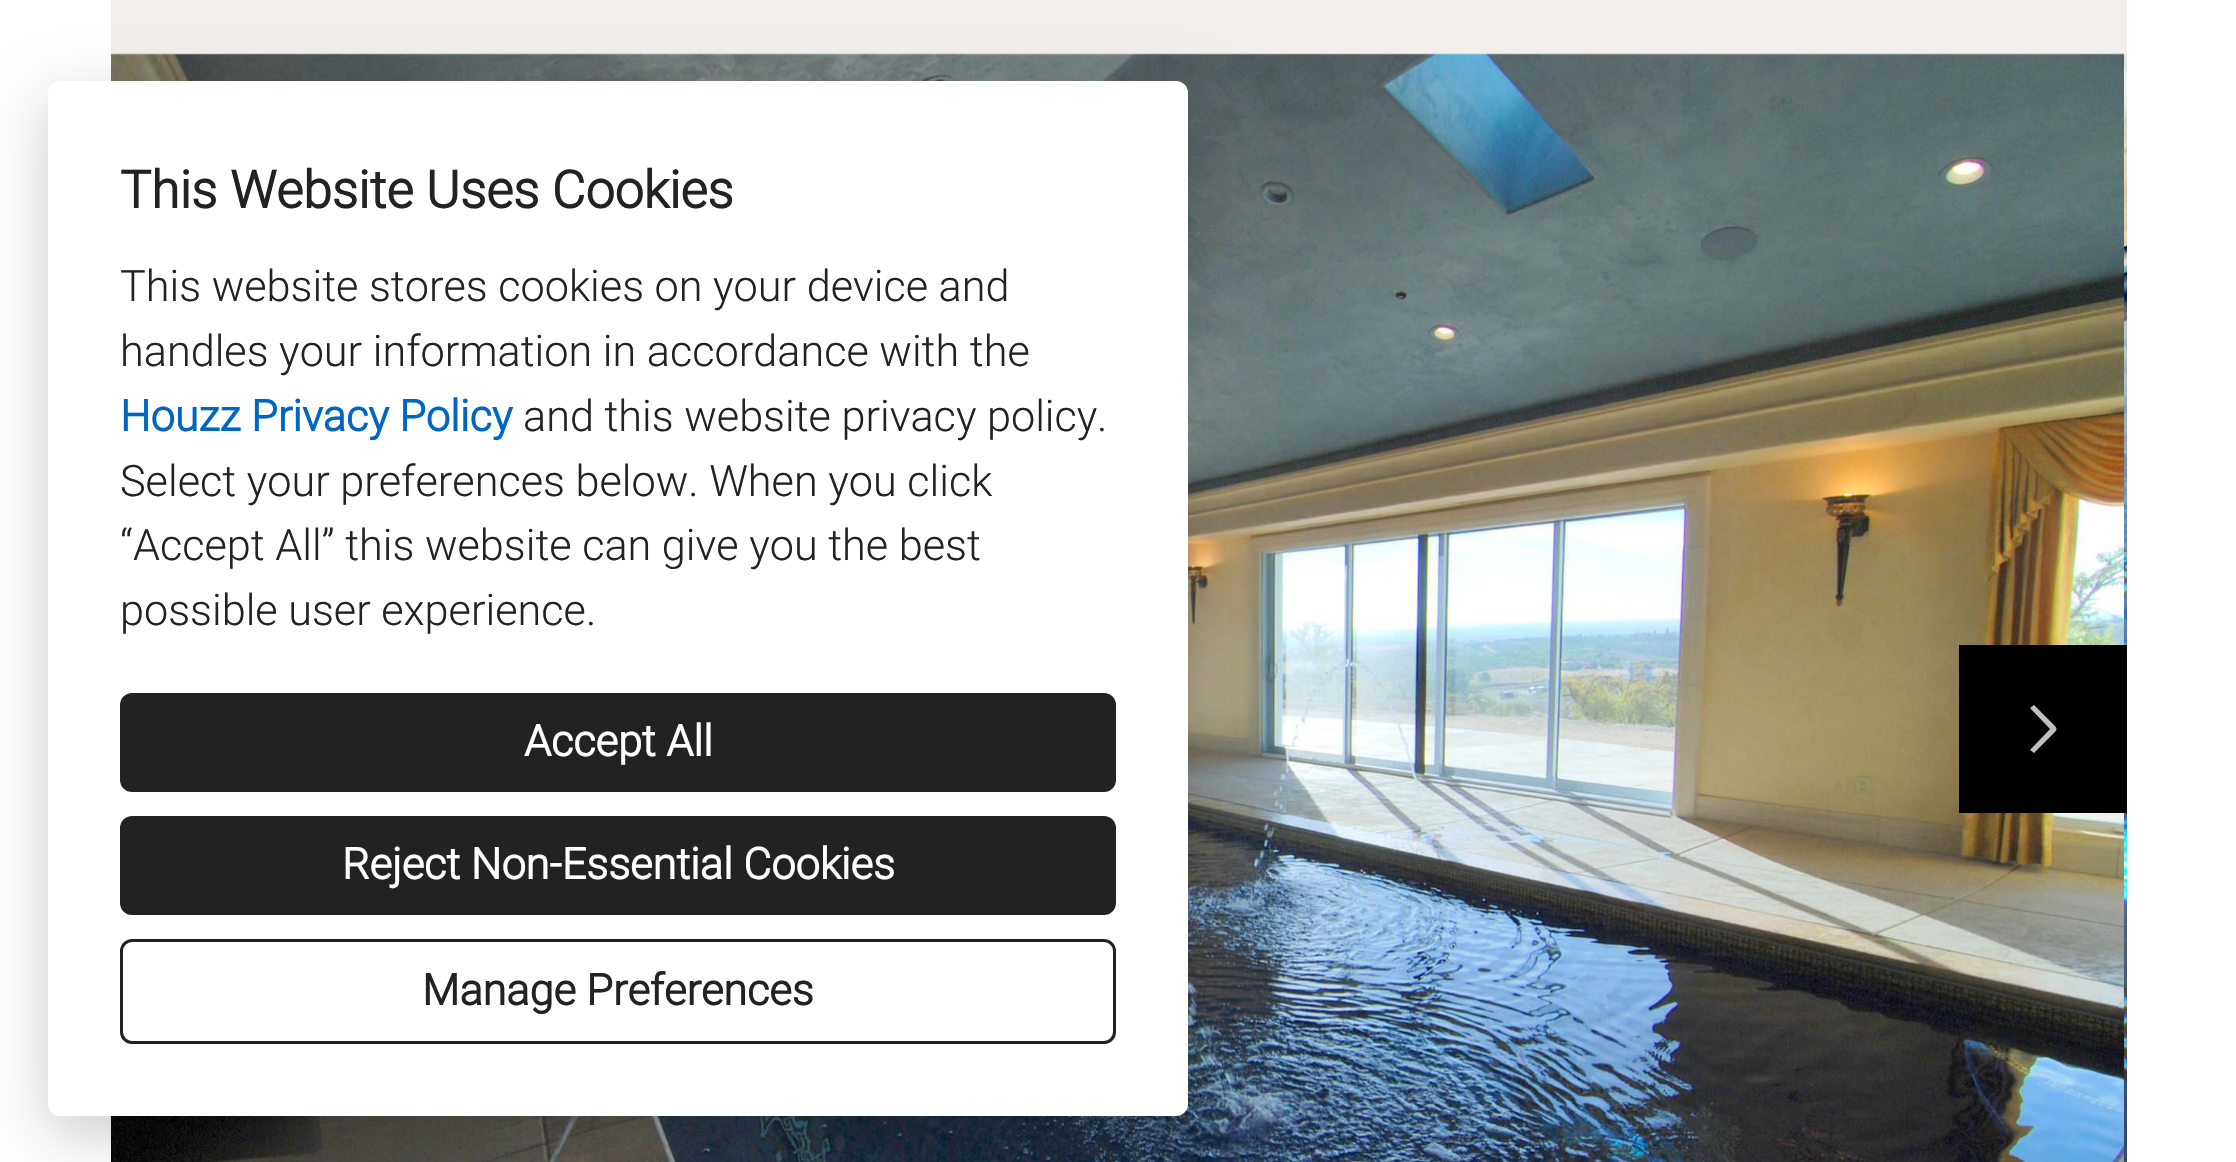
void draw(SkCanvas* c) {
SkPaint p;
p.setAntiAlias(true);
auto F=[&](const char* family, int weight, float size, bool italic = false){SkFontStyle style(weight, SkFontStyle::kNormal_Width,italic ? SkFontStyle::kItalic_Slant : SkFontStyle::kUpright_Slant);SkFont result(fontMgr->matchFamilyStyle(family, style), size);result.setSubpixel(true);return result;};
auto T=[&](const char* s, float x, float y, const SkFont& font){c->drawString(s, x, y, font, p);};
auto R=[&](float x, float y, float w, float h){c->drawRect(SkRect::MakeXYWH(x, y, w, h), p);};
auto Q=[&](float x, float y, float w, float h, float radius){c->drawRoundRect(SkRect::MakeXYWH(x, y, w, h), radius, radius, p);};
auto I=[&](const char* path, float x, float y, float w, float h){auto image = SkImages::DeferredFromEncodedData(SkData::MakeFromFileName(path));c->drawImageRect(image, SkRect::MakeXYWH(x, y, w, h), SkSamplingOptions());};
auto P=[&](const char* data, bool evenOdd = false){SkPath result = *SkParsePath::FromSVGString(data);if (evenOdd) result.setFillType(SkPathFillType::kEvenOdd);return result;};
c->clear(0xffffffff);
p.setColor(0xfff1eeeb);
R(111,0,2016,55);
I("1.png",111,53,2013,1109);
I("2.png",2124,54,3,1108);
p.setColor(0xff000000);
R(1959,645,168,168);
p.setColor(0xffbfbfbf);
c->drawPath(P("M2034 753l18-18c6-6 6-6 0-12l-18-18l-4 3l20 21l-20 21z"),p);
p.setColor(0x33000000);
p.setMaskFilter(SkMaskFilter::MakeBlur(kNormal_SkBlurStyle, 30));
c->drawRoundRect(SkRect::MakeXYWH(48,99,1140,1035),12,12,p);
p.setMaskFilter(nullptr);
p.setColor(0xffffffff);
Q(48,81,1140,1035,12);
auto f1 = F("Roboto",700,51.8);
p.setColor(0xff222222);
T("This Website Uses Cookies",120,208,f1);
auto f2 = F("Roboto",300,43.2);
T("This website stores cookies on your device and",120,301,f2);
T("handles your information in accordance with the",120,366,f2);
auto f3 = F("Roboto",700,43.2);
p.setColor(0xff0066c3);
T("Houzz Privacy Policy",120,431,f3);
p.setColor(0xff222222);
T("and this website privacy policy",523,431,f2);
T(".",1097,431,f2);
T("Select your preferences below. When you click",120,496,f2);
T("“Accept All” this website can give you the best",120,560,f2);
T("possible user experience.",120,625,f2);
Q(120,693,996,99,12);
p.setColor(0xffffffff);
T("Accept All",524,756,f3);
p.setColor(0xff222222);
Q(120,816,996,99,12);
p.setColor(0xffffffff);
T("Reject Non-Essential Cookies",342,879,f3);
p.setStroke(true);
p.setStrokeWidth(3);
p.setColor(0xff222222);
c->drawRoundRect(SkRect::MakeXYWH(121.5,940.5,993,102),10.5,10.5,p);
p.setStroke(false);
T("Manage Preferences",422,1005,f3);
}
